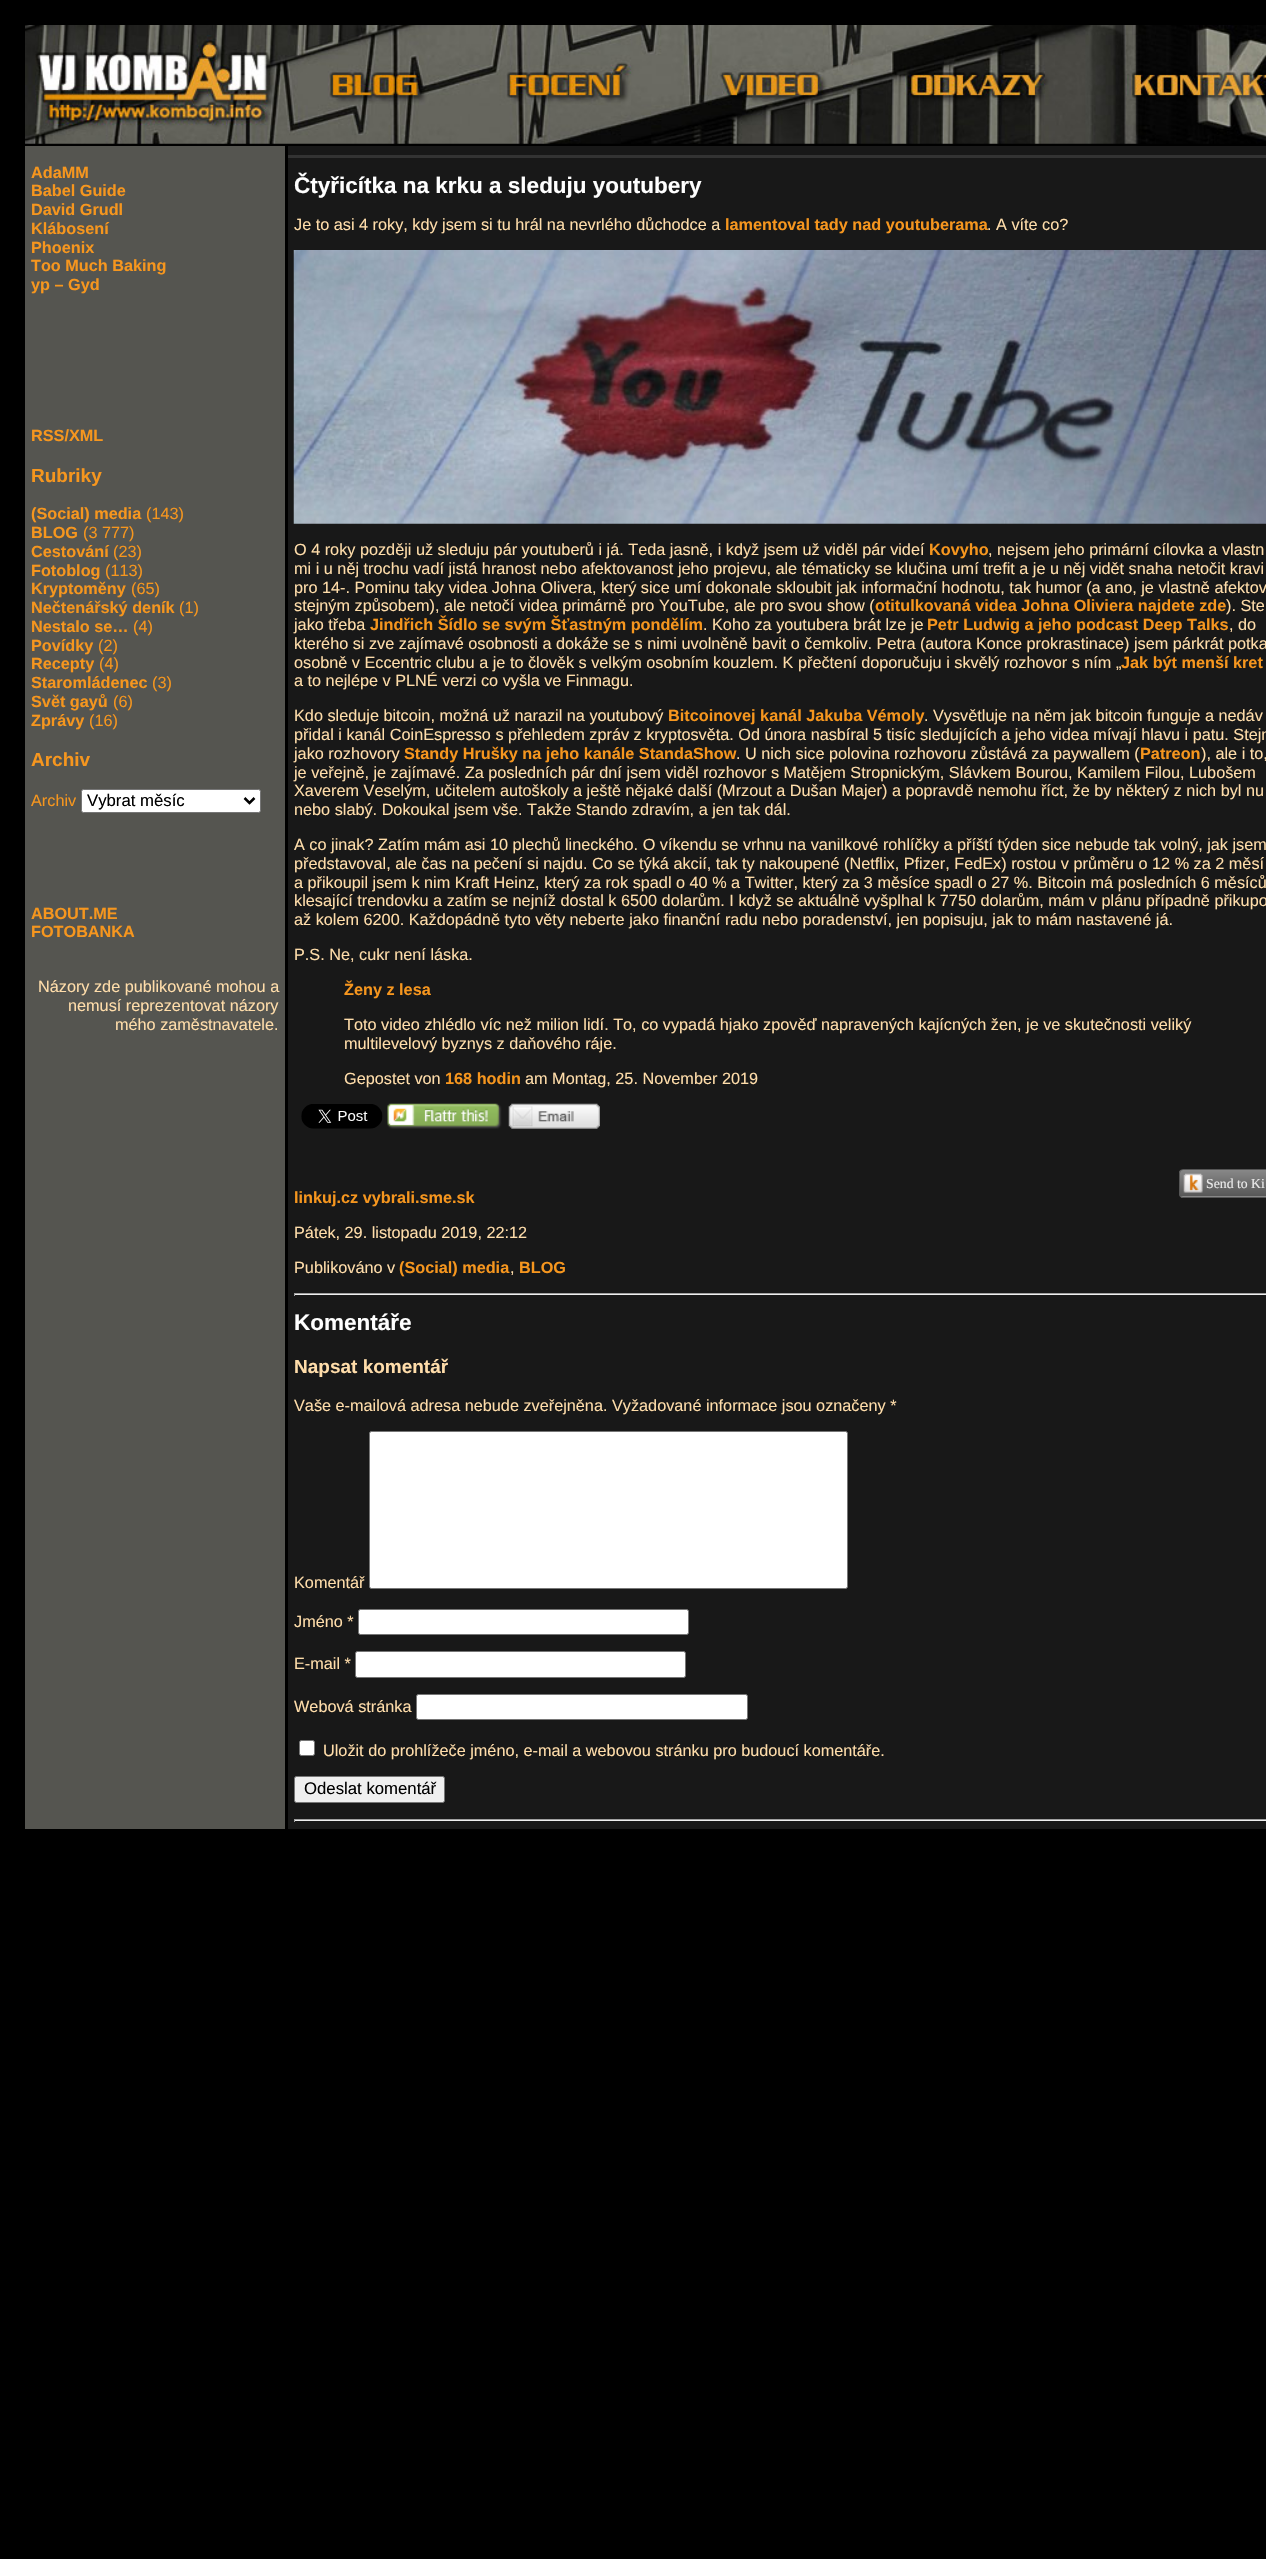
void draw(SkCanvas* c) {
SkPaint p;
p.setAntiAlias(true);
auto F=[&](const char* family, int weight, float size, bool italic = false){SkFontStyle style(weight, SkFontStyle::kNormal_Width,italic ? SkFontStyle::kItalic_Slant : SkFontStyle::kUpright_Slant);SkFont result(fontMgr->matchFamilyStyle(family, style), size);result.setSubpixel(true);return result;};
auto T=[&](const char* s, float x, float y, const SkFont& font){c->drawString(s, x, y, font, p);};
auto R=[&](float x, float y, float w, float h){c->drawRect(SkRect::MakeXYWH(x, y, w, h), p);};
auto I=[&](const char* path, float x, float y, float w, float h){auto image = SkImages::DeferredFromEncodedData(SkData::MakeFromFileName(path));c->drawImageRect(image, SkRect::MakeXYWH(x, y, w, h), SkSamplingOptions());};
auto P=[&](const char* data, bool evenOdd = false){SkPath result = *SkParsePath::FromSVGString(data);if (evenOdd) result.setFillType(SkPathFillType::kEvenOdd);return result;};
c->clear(0xff000000);
I("1.png",25,25,1241,119);
p.setColor(0xff555550);
R(25,146,260,1683);
auto f1 = F("Liberation Sans",700,16.25);
p.setColor(0xfff6961e);
T("AdaMM",31,178,f1);
T("Babel Guide",31,196,f1);
T("David Grudl",31,215,f1);
T("Klábosení",31,234,f1);
T("Phoenix",31,253,f1);
T("Too Much Baking",31,271,f1);
T("yp – Gyd",31,290,f1);
T("RSS/XML",31,441,f1);
auto f2 = F("Liberation Sans",700,19);
T("Rubriky",31,482,f2);
T("(Social) media",31,519,f1);
auto f3 = F("Liberation Sans",400,16.25);
T("(143)",146,519,f3);
T("BLOG",31,538,f1);
T("(3 777)",83,538,f3);
T("Cestování",31,557,f1);
T("(23)",113,557,f3);
T("Fotoblog",31,576,f1);
T("(113)",105,576,f3);
T("Kryptoměny",31,594,f1);
T("(65)",131,594,f3);
T("Nečtenářský deník",31,613,f1);
T("(1)",179,613,f3);
T("Nestalo se…",31,632,f1);
T("(4)",133,632,f3);
T("Povídky",31,651,f1);
T("(2)",98,651,f3);
T("Recepty",31,669,f1);
T("(4)",99,669,f3);
T("Staromládenec",31,688,f1);
T("(3)",152,688,f3);
T("Svět gayů",31,707,f1);
T("(6)",113,707,f3);
T("Zprávy",31,726,f1);
T("(16)",89,726,f3);
T("Archiv",31,766,f2);
T("Archiv",31,806,f3);
p.setColor(0xffffffff);
c->drawRoundRect(SkRect::MakeXYWH(81.5,789.5,179,23),2,2,p);
p.setStroke(true);
p.setStrokeWidth(1);
p.setColor(0xff767676);
c->drawRoundRect(SkRect::MakeXYWH(81.5,789.5,179,23),2,2,p);
p.setStrokeWidth(2.5);
p.setColor(0xff000000);
c->drawPath(P("M244.5 798l5 5l5-5"),p);
auto f4 = F("Liberation Sans",400,16.75);
p.setStroke(false);
T("Vybrat měsíc",87,806,f4);
p.setColor(0xfff6961e);
T("ABOUT.ME",31,919,f1);
T("FOTOBANKA",31,937,f1);
p.setColor(0xffffddaa);
T("Názory zde publikované mohou a",38,992,f3);
T("nemusí reprezentovat názory",68,1011,f3);
T("mého zaměstnavatele.",115,1030,f3);
p.setColor(0xff181818);
R(288,146,978,1683);
p.setColor(0xff333333);
R(288,155,978,3);
auto f5 = F("Liberation Sans",700,22.5);
p.setColor(0xffffffff);
T("Čtyřicítka na krku a sleduju youtubery",294,193,f5);
p.setColor(0xffffddaa);
T("Je to asi 4 roky, kdy jsem si tu hrál na nevrlého důchodce a",294,230,f3);
p.setColor(0xfff6961e);
T("lamentoval tady nad youtuberama",725,230,f1);
p.setColor(0xffffddaa);
T(". A víte co?",987,230,f3);
I("2.png",293,250,973,274);
T("O 4 roky později už sleduju pár youtuberů i já. Teda jasně, i když jsem už viděl pár videí",294,555,f3);
p.setColor(0xfff6961e);
T("Kovyho",929,555,f1);
p.setColor(0xffffddaa);
T(", nejsem jeho primární cílovka a vlastn",988,555,f3);
T("mi i u něj trochu vadí jistá hranost nebo afektovanost jeho projevu, ale tématicky se klučina umí trefit a je u něj vidět snaha netočit kravi",294,574,f3);
T("pro 14-. Pominu taky videa Johna Olivera, který sice umí dokonale skloubit jak informační hodnotu, tak humor (a ano, je vlastně afektov",294,593,f3);
T("stejným způsobem), ale netočí videa primárně pro YouTube, ale pro svou show (",294,611,f3);
p.setColor(0xfff6961e);
T("otitulkovaná videa Johna Oliviera najdete zde",875,611,f1);
p.setColor(0xffffddaa);
T("). Ste",1226,611,f3);
T("jako třeba",294,630,f3);
p.setColor(0xfff6961e);
T("Jindřich Šídlo se svým Šťastným pondělím",370,630,f1);
p.setColor(0xffffddaa);
T(". Koho za youtubera brát lze je",703,630,f3);
p.setColor(0xfff6961e);
T("Petr Ludwig a jeho podcast Deep Talks",927,630,f1);
p.setColor(0xffffddaa);
T(", do",1229,630,f3);
T("kterého si zve zajímavé osobnosti a dokáže se s nimi uvolněně bavit o čemkoliv. Petra (autora Konce prokrastinace) jsem párkrát potka",294,649,f3);
T("osobně v Eccentric clubu a je to člověk s velkým osobním kouzlem. K přečtení doporučuju i skvělý rozhovor s ním „",294,668,f3);
p.setColor(0xfff6961e);
T("Jak být menší kret",1121,668,f1);
p.setColor(0xffffddaa);
T("a to nejlépe v PLNÉ verzi co vyšla ve Finmagu.",294,686,f3);
T("Kdo sleduje bitcoin, možná už narazil na youtubový",294,721,f3);
p.setColor(0xfff6961e);
T("Bitcoinovej kanál Jakuba Vémoly",668,721,f1);
p.setColor(0xffffddaa);
T(". Vysvětluje na něm jak bitcoin funguje a nedáv",924,721,f3);
T("přidal i kanál CoinEspresso s přehledem zpráv z kryptosvěta. Od února nasbíral 5 tisíc sledujících a jeho videa mívají hlavu i patu. Stejn",294,740,f3);
T("jako rozhovory",294,759,f3);
p.setColor(0xfff6961e);
T("Standy Hrušky na jeho kanále StandaShow",404,759,f1);
p.setColor(0xffffddaa);
T(". U nich sice polovina rozhovoru zůstává za paywallem (",736,759,f3);
p.setColor(0xfff6961e);
T("Patreon",1140,759,f1);
p.setColor(0xffffddaa);
T("), ale i to,",1201,759,f3);
T("je veřejně, je zajímavé. Za posledních pár dní jsem viděl rozhovor s Matějem Stropnickým, Slávkem Bourou, Kamilem Filou, Lubošem",294,778,f3);
T("Xaverem Veselým, učitelem autoškoly a ještě nějaké další (Mrzout a Dušan Majer) a popravdě nemohu říct, že by některý z nich byl nu",294,796,f3);
T("nebo slabý. Dokoukal jsem vše. Takže Stando zdravím, a jen tak dál.",294,815,f3);
T("A co jinak? Zatím mám asi 10 plechů lineckého. O víkendu se vrhnu na vanilkové rohlíčky a příští týden sice nebude tak volný, jak jsem",294,850,f3);
T("představoval, ale čas na pečení si najdu. Co se týká akcií, tak ty nakoupené (Netflix, Pfizer, FedEx) rostou v průměru o 12 % za 2 měsí",294,869,f3);
T("a přikoupil jsem k nim Kraft Heinz, který za rok spadl o 40 % a Twitter, který za 3 měsíce spadl o 27 %. Bitcoin má posledních 6 měsíců",294,888,f3);
T("klesající trendovku a zatím se nejníž dostal k 6500 dolarům. I když se aktuálně vyšplhal k 7750 dolarům, mám v plánu případně přikupo",294,906,f3);
T("až kolem 6200. Každopádně tyto věty neberte jako finanční radu nebo poradenství, jen popisuju, jak to mám nastavené já.",294,925,f3);
T("P.S. Ne, cukr není láska.",294,960,f3);
p.setColor(0xfff6961e);
T("Ženy z lesa",344,995,f1);
p.setColor(0xffffddaa);
T("Toto video zhlédlo víc než milion lidí. To, co vypadá hjako zpověď napravených kajícných žen, je ve skutečnosti veliký",344,1030,f3);
T("multilevelový byznys z daňového ráje.",344,1049,f3);
T("Gepostet von",344,1084,f3);
p.setColor(0xfff6961e);
T("168 hodin",445,1084,f1);
p.setColor(0xffffddaa);
T("am Montag, 25. November 2019",525,1084,f3);
I("3.png",301,1104,82,25);
I("4.png",387,1103,115,26);
I("5.png",508,1103,92,26);
c->save();
c->clipPath(P("M1183 1169h107c2 0 4 2 4 4v21c0 2-2 4-4 4h-107c-2 0-4-2-4-4v-21c0-2 2-4 4-4z"),true);
{
const SkColor colors[] = {0xff888888,0xff575757};
const float stops[] = {0,1};
const SkPoint ends[] = {{1236,1170}, {1236,1196}};
p.setShader(SkGradientShader::MakeLinear(ends, colors, stops, 2, SkTileMode::kClamp));
p.setAlpha(255);
}
R(1179,1170,87,26);
{
const SkColor colors[] = {0xff888888,0xff575757};
const float stops[] = {0,1};
const SkPoint ends[] = {{1236,1196}, {1236,1223}};
p.setShader(SkGradientShader::MakeLinear(ends, colors, stops, 2, SkTileMode::kClamp));
p.setAlpha(255);
}
R(1179,1196,87,2);
c->restore();
p.setStroke(true);
p.setStrokeWidth(1);
p.setShader(nullptr);
p.setColor(0xff555555);
c->drawRoundRect(SkRect::MakeXYWH(1179.5,1169.5,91,28),3.5,3.5,p);
I("6.png",1183,1173,20,20);
auto f6 = F("Liberation Serif",400,13.75);
p.setStroke(false);
p.setColor(0xffe9e9e9);
T("Send to Ki",1206,1188,f6);
p.setColor(0xfff6961e);
T("linkuj.cz vybrali.sme.sk",294,1203,f1);
p.setColor(0xffffddaa);
T("Pátek, 29. listopadu 2019, 22:12",294,1238,f3);
T("Publikováno v",294,1273,f3);
p.setColor(0xfff6961e);
T("(Social) media",399,1273,f1);
p.setColor(0xffffddaa);
T(",",510,1273,f3);
p.setColor(0xfff6961e);
T("BLOG",519,1273,f1);
p.setColor(0xff9f9f9f);
R(294,1293,972,1);
p.setColor(0xffeeeeee);
R(294,1294,972,1);
p.setColor(0xff9f9f9f);
R(294,1293,1,3);
p.setColor(0xffffffff);
T("Komentáře",294,1330,f5);
p.setColor(0xffffddaa);
T("Napsat komentář",294,1373,f2);
T("Vaše e-mailová adresa nebude zveřejněna. Vyžadované informace jsou označeny *",294,1411,f3);
T("Komentář",294,1588,f3);
p.setColor(0xffffffff);
c->drawRoundRect(SkRect::MakeXYWH(369.5,1431.5,478,157),2,2,p);
p.setStroke(true);
p.setColor(0xff767676);
c->drawRoundRect(SkRect::MakeXYWH(369.5,1431.5,478,157),2,2,p);
p.setStroke(false);
p.setColor(0xffffddaa);
T("Jméno *",294,1627,f3);
p.setColor(0xffffffff);
c->drawRoundRect(SkRect::MakeXYWH(358.5,1609.5,330,25),2,2,p);
p.setStroke(true);
p.setColor(0xff767676);
c->drawRoundRect(SkRect::MakeXYWH(358.5,1609.5,330,25),2,2,p);
p.setStroke(false);
p.setColor(0xffffddaa);
T("E-mail *",294,1669,f3);
p.setColor(0xffffffff);
c->drawRoundRect(SkRect::MakeXYWH(355.5,1651.5,330,26),2,2,p);
p.setStroke(true);
p.setColor(0xff767676);
c->drawRoundRect(SkRect::MakeXYWH(355.5,1651.5,330,26),2,2,p);
p.setStroke(false);
p.setColor(0xffffddaa);
T("Webová stránka",294,1712,f3);
p.setColor(0xffffffff);
c->drawRoundRect(SkRect::MakeXYWH(416.5,1694.5,331,25),2,2,p);
p.setStroke(true);
p.setColor(0xff767676);
c->drawRoundRect(SkRect::MakeXYWH(416.5,1694.5,331,25),2,2,p);
p.setStroke(false);
p.setColor(0xffffffff);
c->drawRoundRect(SkRect::MakeXYWH(299.5,1740.5,15,15),2,2,p);
p.setStroke(true);
p.setColor(0xff767676);
c->drawRoundRect(SkRect::MakeXYWH(299.5,1740.5,15,15),2,2,p);
p.setStroke(false);
p.setColor(0xffffddaa);
T("Uložit do prohlížeče jméno, e-mail a webovou stránku pro budoucí komentáře.",323,1756,f3);
p.setColor(0xffefefef);
c->drawRoundRect(SkRect::MakeXYWH(294.5,1776.5,150,26),2,2,p);
p.setStroke(true);
p.setColor(0xff767676);
c->drawRoundRect(SkRect::MakeXYWH(294.5,1776.5,150,26),2,2,p);
p.setStroke(false);
p.setColor(0xff000000);
T("Odeslat komentář",304,1794,f4);
p.setColor(0xff9f9f9f);
R(294,1819,972,1);
p.setColor(0xffeeeeee);
R(294,1820,972,1);
p.setColor(0xff9f9f9f);
R(294,1819,1,3);
}
